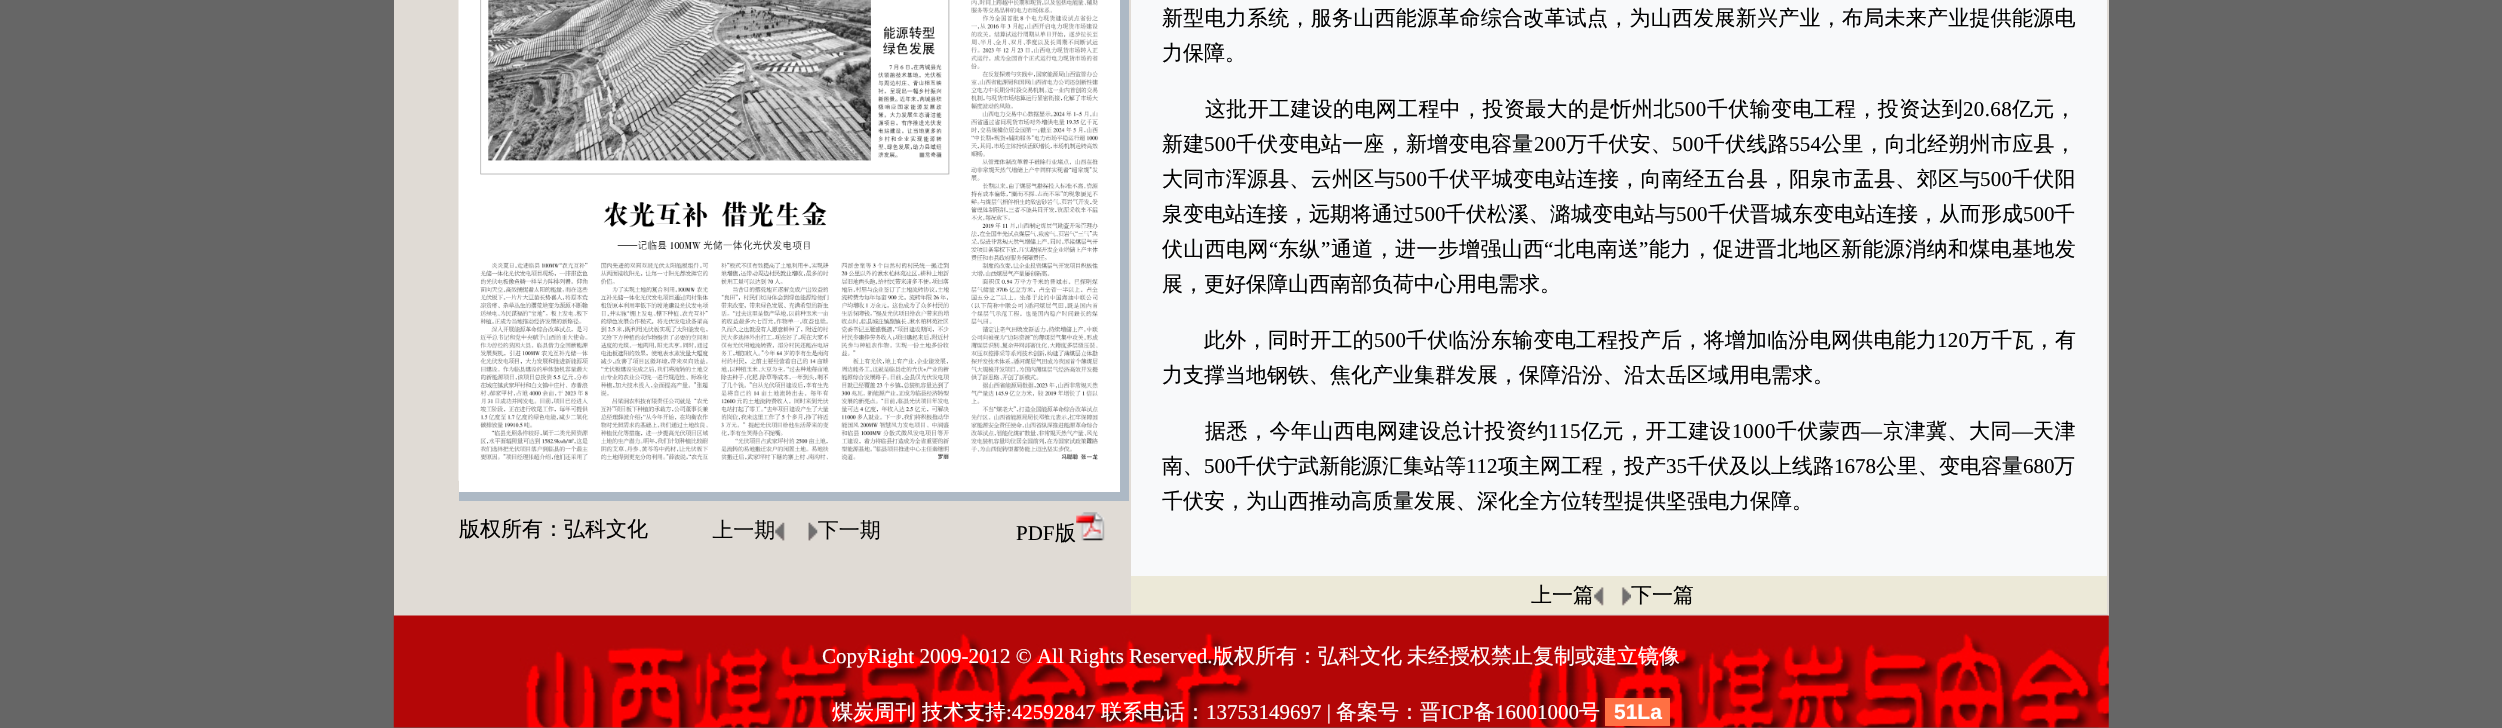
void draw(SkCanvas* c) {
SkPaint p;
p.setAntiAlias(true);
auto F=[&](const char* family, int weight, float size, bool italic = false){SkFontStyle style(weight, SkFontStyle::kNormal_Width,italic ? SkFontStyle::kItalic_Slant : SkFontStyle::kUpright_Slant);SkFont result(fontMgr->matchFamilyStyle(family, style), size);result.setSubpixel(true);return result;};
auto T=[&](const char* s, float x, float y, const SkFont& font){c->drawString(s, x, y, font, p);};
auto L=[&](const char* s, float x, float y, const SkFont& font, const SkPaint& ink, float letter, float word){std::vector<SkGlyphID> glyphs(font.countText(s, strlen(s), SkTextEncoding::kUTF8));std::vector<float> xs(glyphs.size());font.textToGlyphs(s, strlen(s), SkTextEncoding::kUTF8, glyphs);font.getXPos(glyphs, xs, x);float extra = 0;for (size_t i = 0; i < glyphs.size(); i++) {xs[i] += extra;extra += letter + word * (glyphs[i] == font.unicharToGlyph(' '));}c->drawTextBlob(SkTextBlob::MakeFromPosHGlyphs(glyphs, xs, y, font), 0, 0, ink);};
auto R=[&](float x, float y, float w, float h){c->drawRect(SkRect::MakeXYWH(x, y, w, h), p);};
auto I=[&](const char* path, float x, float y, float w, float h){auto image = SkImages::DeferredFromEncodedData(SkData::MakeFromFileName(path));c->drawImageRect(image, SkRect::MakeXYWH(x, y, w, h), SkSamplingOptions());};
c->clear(0xff666666);
p.setColor(0xffe0dbd5);
R(394,0,1715,616);
p.setColor(0xffffffff);
R(459,0,661,492);
I("1.png",458,0,641,481);
p.setColor(0xffadb9c5);
R(1120,0,9,492);
R(459,492,670,9);
auto f1 = F("WenQuanYi Zen Hei",500,21);
p.setColor(0xff000000);
T("版权所有：弘科文化",459,536,f1);
I("2.png",712,519,168,22);
auto f2 = F("Liberation Serif",400,21);
T("PDF",1016,540,f2);
T("版",1055,540,f1);
I("3.png",1076,512,29,29);
p.setColor(0xfff8f9fa);
R(1131,0,976,576);
p.setColor(0xff000000);
L("新型电力系统，服务山西能源革命综合改革试点，为山西发展新兴产业，布局未来产业提供能源电",1162,25,f1,p,.25,0);
T("力保障。",1162,60,f1);
L("这批开工建设的电网工程中，投资最大的是忻州北",1205,116,f1,p,.35,0);
L("500",1674,116,f2,p,.35,0);
L("千伏输变电工程，投资达到",1707,116,f1,p,.35,0);
L("20.68",1963,116,f2,p,.35,0);
L("亿元，",2012,116,f1,p,.35,0);
L("新建",1162,151,f1,p,.25,0);
L("500",1204,151,f2,p,.25,0);
L("千伏变电站一座，新增变电容量",1236,151,f1,p,.25,0);
L("200",1534,151,f2,p,.25,0);
L("万千伏安、",1566,151,f1,p,.25,0);
L("500",1672,151,f2,p,.25,0);
L("千伏线路",1704,151,f1,p,.25,0);
L("554",1789,151,f2,p,.25,0);
L("公里，向北经朔州市应县，",1821,151,f1,p,.25,0);
L("大同市浑源县、云州区与",1162,186,f1,p,.25,0);
L("500",1395,186,f2,p,.25,0);
L("千伏平城变电站连接，向南经五台县，阳泉市盂县、郊区与",1428,186,f1,p,.25,0);
L("500",1980,186,f2,p,.25,0);
L("千伏阳",2012,186,f1,p,.25,0);
T("泉变电站连接，远期将通过",1162,221,f1);
T("500",1414,221,f2);
T("千伏松溪、潞城变电站与",1445,221,f1);
T("500",1676,221,f2);
T("千伏晋城东变电站连接，从而形成",1708,221,f1);
T("500",2023,221,f2);
T("千",2054,221,f1);
L("伏山西电网",1162,256,f1,p,.35,0);
L("“",1269,256,f2,p,.35,0);
L("东纵",1278,256,f1,p,.35,0);
L("”",1321,256,f2,p,.35,0);
L("通道，进一步增强山西",1331,256,f1,p,.35,0);
L("“",1544,256,f2,p,.35,0);
L("北电南送",1554,256,f1,p,.35,0);
L("”",1639,256,f2,p,.35,0);
L("能力，促进晋北地区新能源消纳和煤电基地发",1649,256,f1,p,.35,0);
T("展，更好保障山西南部负荷中心用电需求。",1162,291,f1);
L("此外，同时开工的",1204,347,f1,p,.25,0);
L("500",1374,347,f2,p,.25,0);
L("千伏临汾东输变电工程投产后，将增加临汾电网供电能力",1406,347,f1,p,.25,0);
L("120",1937,347,f2,p,.25,0);
L("万千瓦，有",1970,347,f1,p,.25,0);
T("力支撑当地钢铁、焦化产业集群发展，保障沿汾、沿太岳区域用电需求。",1162,382,f1);
L("据悉，今年山西电网建设总计投资约",1205,438,f1,p,.5,0);
L("115",1548,438,f2,p,.5,0);
L("亿元，开工建设",1581,438,f1,p,.5,0);
L("1000",1732,438,f2,p,.5,0);
L("千伏蒙西",1776,438,f1,p,.5,0);
L("—",1861,438,f2,p,.5,0);
L("京津冀、大同",1883,438,f1,p,.5,0);
L("—",2012,438,f2,p,.5,0);
L("天津",2033,438,f1,p,.5,0);
T("南、",1162,473,f1);
T("500",1204,473,f2);
T("千伏宁武新能源汇集站等",1235,473,f1);
T("112",1466,473,f2);
T("项主网工程，投产",1498,473,f1);
T("35",1666,473,f2);
T("千伏及以上线路",1687,473,f1);
T("1678",1834,473,f2);
T("公里、变电容量",1876,473,f1);
T("680",2023,473,f2);
T("万",2054,473,f1);
T("千伏安，为山西推动高质量发展、深化全方位转型提供坚强电力保障。",1162,508,f1);
p.setColor(0xffece9d8);
R(1131,576,976,38);
p.setColor(0xff000000);
T("上一篇",1531,602,f1);
I("4.png",1594,587,10,19);
I("5.png",1621,587,10,19);
T("下一篇",1631,602,f1);
I("6.png",393,615,1716,113);
p.setColor(0xffffffff);
T("CopyRight 2009-2012 © All Rights Reserved.",822,663,f2);
T("版权所有：弘科文化",1213,663,f1);
T("未经授权禁止复制或建立镜像",1407,663,f1);
T("煤炭周刊",832,719,f1);
T("技术支持",922,719,f1);
T(":42592847",1006,719,f2);
T("联系电话：",1101,719,f1);
T("13753149697 |",1206,719,f2);
T("备案号：晋",1336,719,f1);
T("ICP",1441,719,f2);
T("备",1474,719,f1);
T("16001000",1495,719,f2);
T("号",1579,719,f1);
p.setColor(0xffff7043);
R(1605,698,65,28);
auto f3 = F("Liberation Sans",700,21);
p.setColor(0xffffffff);
T("51La",1614,719,f3);
}
